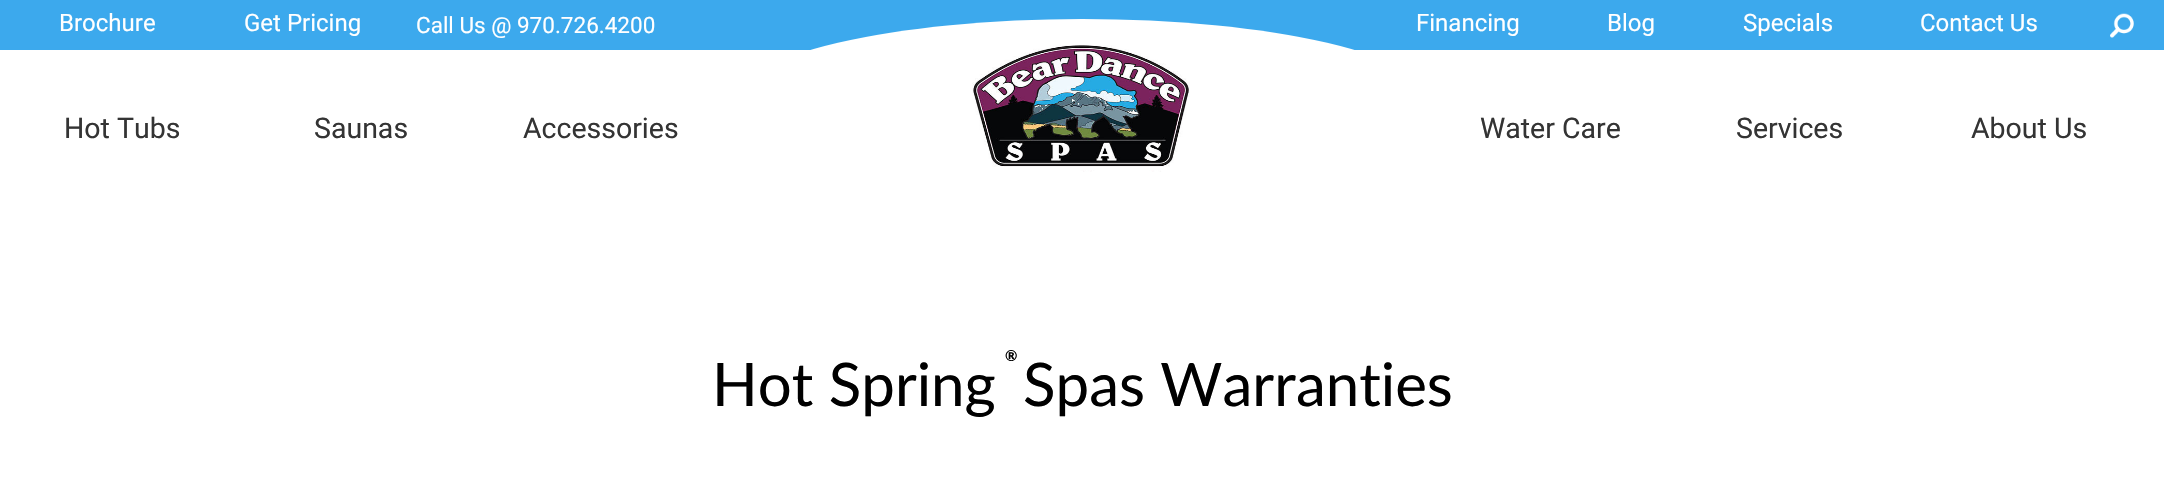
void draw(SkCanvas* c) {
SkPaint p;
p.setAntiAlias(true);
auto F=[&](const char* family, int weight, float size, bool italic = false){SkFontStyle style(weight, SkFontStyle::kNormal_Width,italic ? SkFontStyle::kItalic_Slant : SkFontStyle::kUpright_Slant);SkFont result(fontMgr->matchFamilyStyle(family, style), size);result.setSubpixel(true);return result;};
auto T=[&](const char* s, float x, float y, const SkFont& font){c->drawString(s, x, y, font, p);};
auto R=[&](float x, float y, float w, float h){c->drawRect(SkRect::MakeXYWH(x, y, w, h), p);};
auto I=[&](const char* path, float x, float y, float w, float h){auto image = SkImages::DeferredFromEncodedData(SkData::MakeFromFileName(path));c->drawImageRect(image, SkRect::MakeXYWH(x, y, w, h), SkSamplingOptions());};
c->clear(0xffffffff);
p.setColor(0xff3ca9ed);
R(0,0,2164,50);
auto f1 = F("Roboto",400,24);
p.setColor(0xffffffff);
T("Brochure",59,31,f1);
T("Get Pricing",244,31,f1);
auto f2 = F("Roboto",400,22.5);
T("Call Us @ 970.726.4200",416,33,f2);
T("Financing",1416,31,f1);
T("Blog",1607,31,f1);
T("Specials",1743,31,f1);
T("Contact Us",1920,31,f1);
I("1.png",2110,13,24,25);
auto f3 = F("Roboto",400,28.5);
p.setColor(0xff343434);
T("Hot Tubs",64,138,f3);
T("Saunas",314,138,f3);
T("Accessories",523,138,f3);
p.setColor(0xffffffff);
c->drawOval(SkRect::MakeXYWH(736.5,19,692,162),p);
I("2.png",972,45,218,127);
p.setColor(0xff343434);
T("Water Care",1480,138,f3);
T("Services",1736,138,f3);
T("About Us",1971,138,f3);
auto f4 = F("Lato",700,15);
p.setColor(0xff000000);
T("®",1005,361,f4);
auto f5 = F("Lato",400,60);
T("Hot Spring",712,406,f5);
T("Spas Warranties",1023,406,f5);
}
